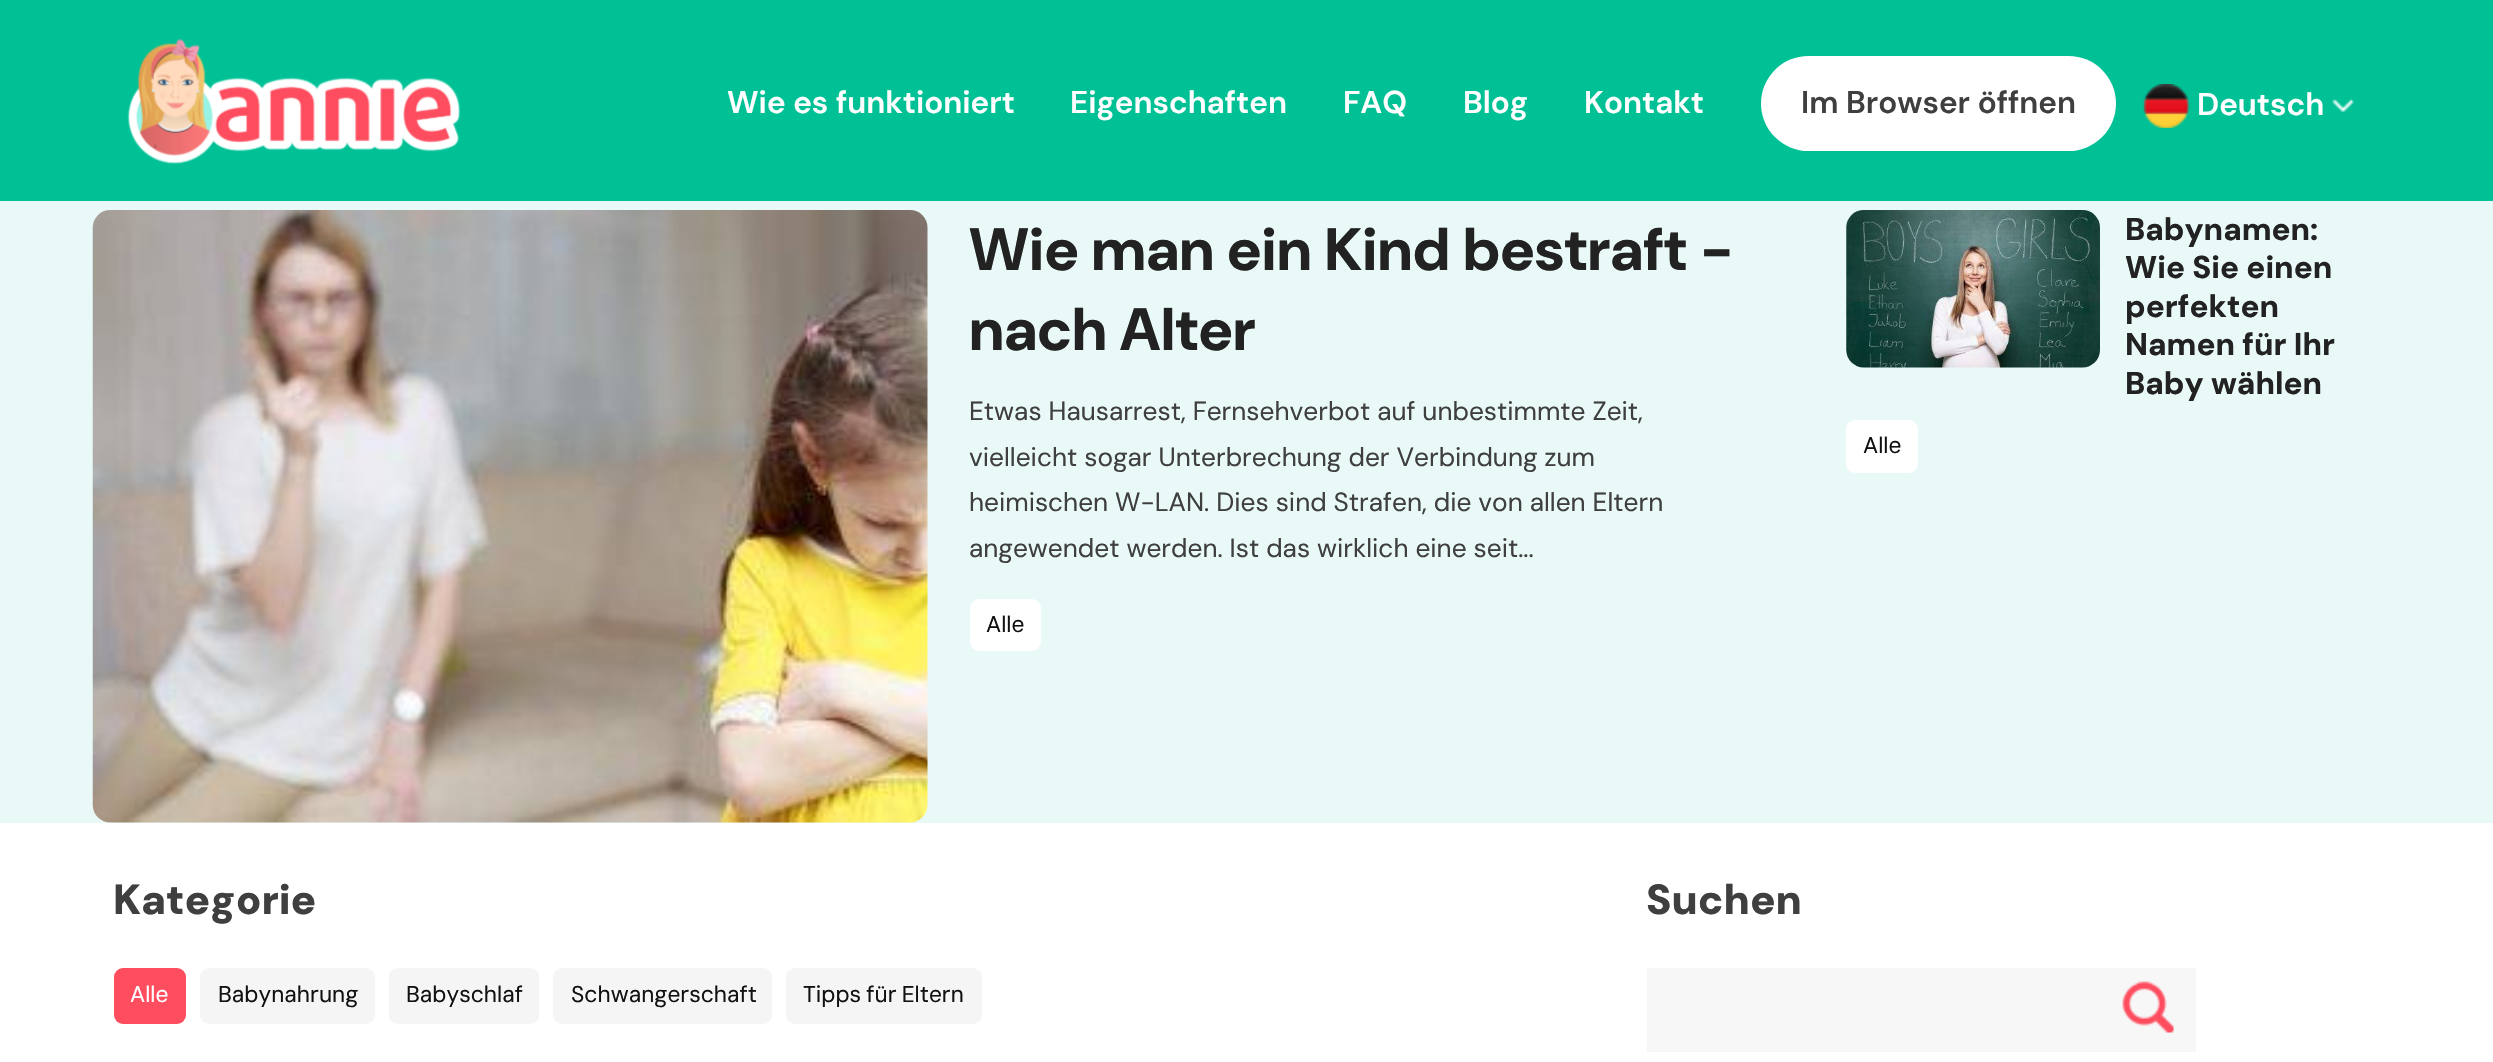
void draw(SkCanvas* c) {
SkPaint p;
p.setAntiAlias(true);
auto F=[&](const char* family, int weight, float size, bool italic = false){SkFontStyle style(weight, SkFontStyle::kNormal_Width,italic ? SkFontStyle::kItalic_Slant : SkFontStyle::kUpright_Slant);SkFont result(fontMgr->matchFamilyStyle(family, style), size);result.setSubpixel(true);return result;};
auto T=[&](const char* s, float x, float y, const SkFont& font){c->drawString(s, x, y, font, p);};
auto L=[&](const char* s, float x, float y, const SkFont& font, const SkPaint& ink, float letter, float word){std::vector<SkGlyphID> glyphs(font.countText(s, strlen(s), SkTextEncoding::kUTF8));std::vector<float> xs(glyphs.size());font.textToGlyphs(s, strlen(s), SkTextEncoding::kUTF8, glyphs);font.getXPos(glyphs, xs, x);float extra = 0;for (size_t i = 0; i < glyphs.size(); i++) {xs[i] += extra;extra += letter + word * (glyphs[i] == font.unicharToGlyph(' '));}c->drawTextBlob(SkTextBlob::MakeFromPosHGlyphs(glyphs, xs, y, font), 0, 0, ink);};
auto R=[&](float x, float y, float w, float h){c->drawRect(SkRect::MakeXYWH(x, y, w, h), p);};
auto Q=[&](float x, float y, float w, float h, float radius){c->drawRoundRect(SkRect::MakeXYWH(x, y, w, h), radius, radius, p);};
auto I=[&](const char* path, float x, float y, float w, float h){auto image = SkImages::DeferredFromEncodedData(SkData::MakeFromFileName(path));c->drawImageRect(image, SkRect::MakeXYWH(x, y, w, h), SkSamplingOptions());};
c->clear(0xffffffff);
p.setColor(0xff00c196);
R(0,0,2493,201);
I("1.png",127,38,334,126);
auto f1 = F("DM Sans",600,31.5);
p.setColor(0xffffffff);
T("Wie es funktioniert",727,113,f1);
T("Eigenschaften",1070,113,f1);
T("FAQ",1343,113,f1);
T("Blog",1463,113,f1);
T("Kontakt",1584,113,f1);
Q(1761,56,355,95,47.5);
p.setColor(0xff3f3f3f);
T("Im Browser öffnen",1801,113,f1);
I("2.png",2143,84,47,44);
p.setColor(0xffffffff);
T("Deutsch",2197,115,f1);
I("3.png",2332,99,22,13);
p.setColor(0xffe8f9f7);
R(0,201,2493,622);
I("4.png",92,210,836,613);
auto f2 = F("DM Sans",800,59.5);
p.setColor(0xff222222);
T("Wie man ein Kind bestraft -",969,270,f2);
T("nach Alter",969,350,f2);
auto f3 = F("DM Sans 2",400,26.25);
p.setColor(0xff3f3f3f);
T("Etwas Hausarrest, Fernsehverbot auf unbestimmte Zeit,",969,420,f3);
T("vielleicht sogar Unterbrechung der Verbindung zum",969,466,f3);
T("heimischen W-LAN. Dies sind Strafen, die von allen Eltern",969,511,f3);
T("angewendet werden. Ist das wirklich eine seit...",969,557,f3);
p.setColor(0xffffffff);
Q(970,599,71,52,9);
auto f4 = F("DM Sans",400,22.75);
p.setColor(0xff111111);
T("Alle",986,632,f4);
I("5.png",1846,210,254,158);
auto f5 = F("DM Sans 2",800,31.5);
p.setColor(0xff222222);
T("Babynamen:",2125,240,f5);
T("Wie Sie einen",2125,278,f5);
T("perfekten",2125,317,f5);
T("Namen für Ihr",2125,355,f5);
T("Baby wählen",2125,394,f5);
p.setColor(0xffffffff);
Q(1846,420,72,53,9);
p.setColor(0xff111111);
T("Alle",1863,453,f4);
auto f6 = F("DM Sans",900,42);
p.setColor(0xff3f3f3f);
T("Kategorie",113,914,f6);
p.setColor(0xfffe4d5f);
Q(114,968,72,56,9);
p.setColor(0xffffffff);
T("Alle",130,1002,f4);
p.setColor(0xfff5f5f5);
Q(200,968,175,56,9);
p.setColor(0xff111111);
T("Babynahrung",218,1002,f4);
p.setColor(0xfff5f5f5);
Q(389,968,150,56,9);
p.setColor(0xff111111);
T("Babyschlaf",406,1002,f4);
p.setColor(0xfff5f5f5);
Q(553,968,219,56,9);
p.setColor(0xff111111);
T("Schwangerschaft",571,1002,f4);
p.setColor(0xfff5f5f5);
Q(786,968,196,56,9);
p.setColor(0xff111111);
L("Tipps für Eltern",803,1002,f4,p,0,-1);
p.setColor(0xff3f3f3f);
T("Suchen",1646,914,f6);
p.setColor(0xfff7f7f7);
R(1647,968,549,84);
I("6.png",2122,981,52,52);
}
